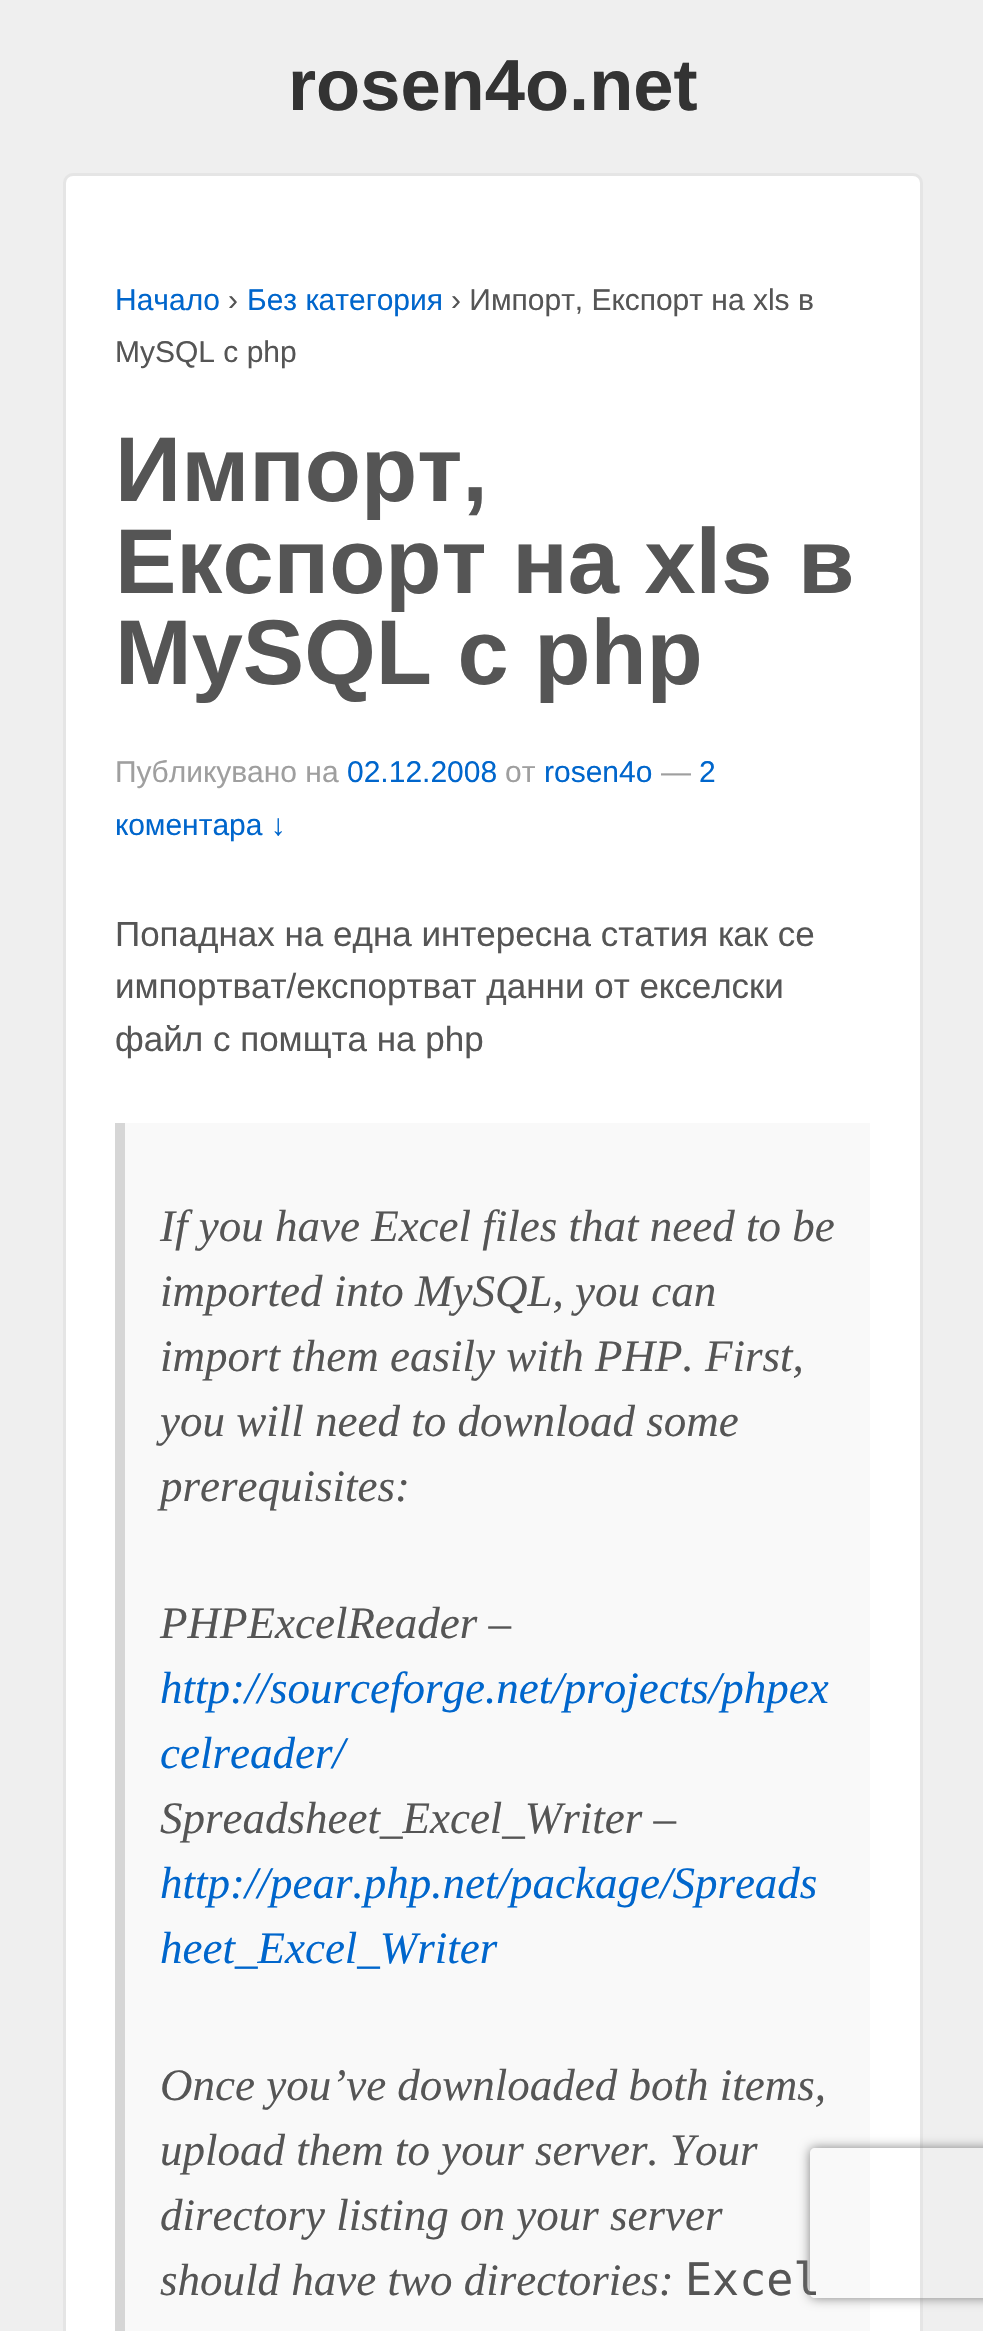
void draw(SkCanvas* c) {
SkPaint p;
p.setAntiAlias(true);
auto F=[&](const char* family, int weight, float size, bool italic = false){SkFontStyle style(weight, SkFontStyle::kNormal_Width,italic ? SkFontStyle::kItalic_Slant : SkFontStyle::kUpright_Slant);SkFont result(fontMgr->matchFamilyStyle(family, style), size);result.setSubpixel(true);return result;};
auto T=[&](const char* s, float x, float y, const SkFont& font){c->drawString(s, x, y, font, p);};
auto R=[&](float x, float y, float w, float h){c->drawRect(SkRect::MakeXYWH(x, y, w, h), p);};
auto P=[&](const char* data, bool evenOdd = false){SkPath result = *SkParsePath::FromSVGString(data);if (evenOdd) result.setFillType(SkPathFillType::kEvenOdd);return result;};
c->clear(0xffefefef);
auto f1 = F("Liberation Sans",700,72.25);
p.setColor(0xff333333);
T("rosen4o.net",288,110,f1);
p.setColor(0xffffffff);
c->drawRoundRect(SkRect::MakeXYWH(64.5,174.5,857,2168),8.5,8.5,p);
p.setStroke(true);
p.setStrokeWidth(3);
p.setColor(0xffe5e5e5);
c->drawRoundRect(SkRect::MakeXYWH(64.5,174.5,857,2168),8.5,8.5,p);
auto f2 = F("Liberation Sans",400,30);
p.setStroke(false);
p.setColor(0xff0066cc);
T("Начало",115,310,f2);
p.setColor(0xff555555);
T("›",228,310,f2);
p.setColor(0xff0066cc);
T("Без категория",247,310,f2);
p.setColor(0xff555555);
T("› Импорт, Експорт на xls в",451,310,f2);
T("MySQL с php",115,362,f2);
auto f3 = F("Liberation Sans",700,92);
T("Импорт,",115,501,f3);
T("Експорт на xls в",115,593,f3);
T("MySQL с php",115,684,f3);
p.setColor(0xff9f9f9f);
T("Публикувано на",115,782,f2);
p.setColor(0xff0066cc);
T("02.12.2008",347,782,f2);
p.setColor(0xff9f9f9f);
T("от",505,782,f2);
p.setColor(0xff0066cc);
T("rosen4o",544,782,f2);
p.setColor(0xff9f9f9f);
T("—",661,782,f2);
p.setColor(0xff0066cc);
T("2",699,782,f2);
T("коментара ↓",115,835,f2);
auto f4 = F("Liberation Sans",400,35);
p.setColor(0xff555555);
T("Попаднах на една интересна статия как се",115,946,f4);
T("импортват/експортват данни от екселски",115,998,f4);
T("файл с помщта на php",115,1051,f4);
p.setColor(0xfff9f9f9);
R(125,1123,745,1208);
p.setColor(0xffd6d6d6);
R(115,1123,10,1208);
auto f5 = F("Liberation Serif",400,45,true);
p.setColor(0xff555555);
T("If you have Excel files that need to be",160,1241,f5);
T("imported into MySQL, you can",160,1306,f5);
T("import them easily with PHP. First,",160,1371,f5);
T("you will need to download some",160,1436,f5);
T("prerequisites:",160,1501,f5);
T("PHPExcelReader –",160,1638,f5);
p.setColor(0xff0066cc);
T("http://sourceforge.net/projects/phpex",160,1703,f5);
T("celreader/",160,1768,f5);
p.setColor(0xff555555);
T("Spreadsheet_Excel_Writer –",160,1833,f5);
p.setColor(0xff0066cc);
T("http://pear.php.net/package/Spreads",160,1898,f5);
T("heet_Excel_Writer",160,1963,f5);
p.setColor(0xff555555);
T("Once you’ve downloaded both items,",160,2100,f5);
T("upload them to your server. Your",160,2165,f5);
T("directory listing on your server",160,2230,f5);
T("should have two directories:",160,2295,f5);
auto f6 = F("DejaVu Sans Mono",400,45);
T("Excel",685,2295,f6);
c->save();
c->clipPath(P("M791 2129h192v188h-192zm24 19h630c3 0 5 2 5 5v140c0 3-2 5-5 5h-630c-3 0-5-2-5-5v-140c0-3 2-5 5-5z",true),true);
p.setColor(0xff808080);
p.setMaskFilter(SkMaskFilter::MakeBlur(kNormal_SkBlurStyle, 6));
c->drawRoundRect(SkRect::MakeXYWH(810,2148,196,150),5,5,p);
p.setMaskFilter(nullptr);
c->restore();
}
